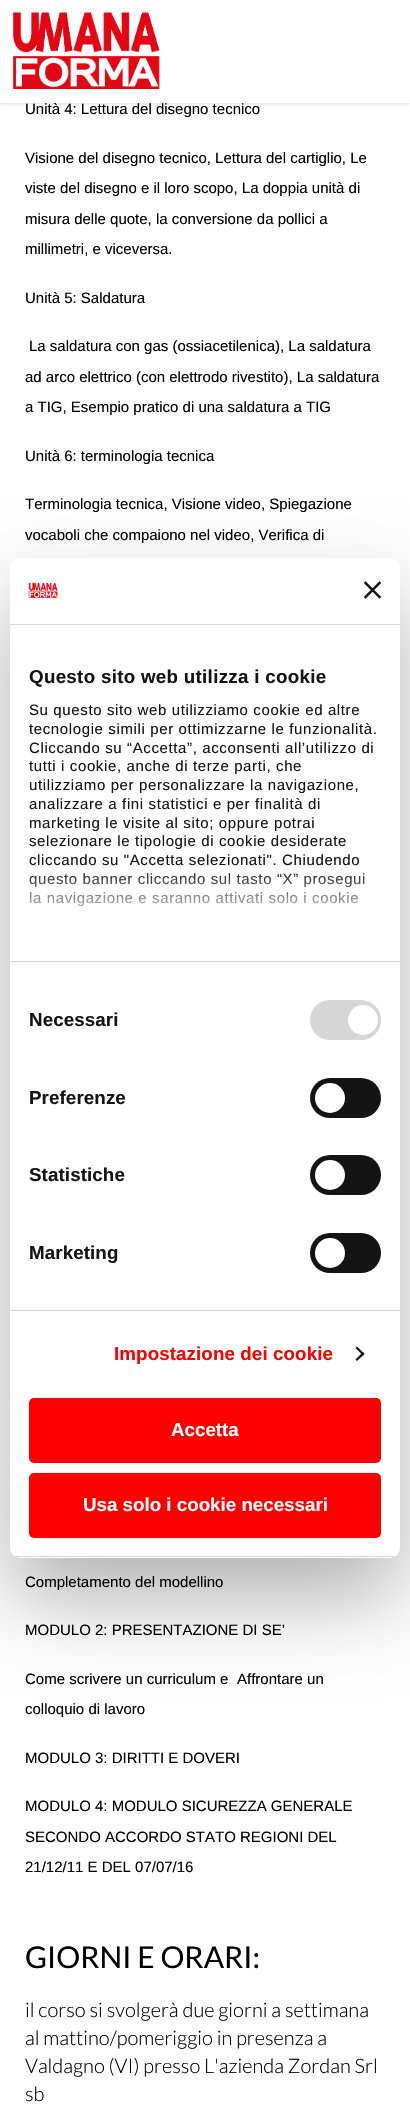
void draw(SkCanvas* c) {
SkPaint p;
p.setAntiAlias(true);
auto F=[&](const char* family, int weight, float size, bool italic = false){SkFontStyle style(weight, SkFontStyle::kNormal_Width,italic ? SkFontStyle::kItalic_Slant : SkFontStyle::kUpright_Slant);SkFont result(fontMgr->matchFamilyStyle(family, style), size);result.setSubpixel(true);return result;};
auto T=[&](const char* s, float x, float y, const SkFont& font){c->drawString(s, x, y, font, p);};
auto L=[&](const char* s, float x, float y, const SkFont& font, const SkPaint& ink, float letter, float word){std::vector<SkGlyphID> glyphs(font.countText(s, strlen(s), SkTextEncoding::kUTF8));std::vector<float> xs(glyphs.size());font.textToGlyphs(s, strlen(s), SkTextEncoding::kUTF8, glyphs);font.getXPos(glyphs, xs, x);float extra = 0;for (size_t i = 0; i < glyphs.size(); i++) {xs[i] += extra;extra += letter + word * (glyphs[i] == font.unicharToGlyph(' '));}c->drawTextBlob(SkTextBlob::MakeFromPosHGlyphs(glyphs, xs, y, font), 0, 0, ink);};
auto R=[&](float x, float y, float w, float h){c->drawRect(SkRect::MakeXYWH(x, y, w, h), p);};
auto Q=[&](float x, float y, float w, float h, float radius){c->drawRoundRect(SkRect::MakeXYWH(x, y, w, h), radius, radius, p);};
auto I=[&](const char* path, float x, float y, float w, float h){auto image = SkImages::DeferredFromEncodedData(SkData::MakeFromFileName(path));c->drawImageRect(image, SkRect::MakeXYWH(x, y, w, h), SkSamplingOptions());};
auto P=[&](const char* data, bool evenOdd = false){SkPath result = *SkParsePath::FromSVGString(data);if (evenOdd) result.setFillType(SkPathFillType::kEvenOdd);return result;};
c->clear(0xffffffff);
p.setColor(0x33000000);
p.setMaskFilter(SkMaskFilter::MakeBlur(kNormal_SkBlurStyle, 2));
c->drawRect(SkRect::MakeXYWH(0,0,410,103),p);
p.setMaskFilter(nullptr);
auto f1 = F("Liberation Sans",400,15);
p.setColor(0xff000000);
T("Unità 4: Lettura del disegno tecnico",25,114,f1);
p.setColor(0xffffffff);
R(0,0,410,103);
I("1.png",13,12,147,77);
p.setColor(0xff000000);
T("Visione del disegno tecnico, Lettura del cartiglio, Le",25,163,f1);
T("viste del disegno e il loro scopo, La doppia unità di",25,193,f1);
T("misura delle quote, la conversione da pollici a",25,224,f1);
T("millimetri, e viceversa.",25,254,f1);
T("Unità 5: Saldatura",25,303,f1);
T("La saldatura con gas (ossiacetilenica), La saldatura",29,351,f1);
T("ad arco elettrico (con elettrodo rivestito), La saldatura",25,382,f1);
T("a TIG, Esempio pratico di una saldatura a TIG",25,412,f1);
T("Unità 6: terminologia tecnica",25,461,f1);
T("Terminologia tecnica, Visione video, Spiegazione",25,509,f1);
T("vocaboli che compaiono nel video, Verifica di",25,540,f1);
T("Completamento del modellino",25,1587,f1);
T("MODULO 2: PRESENTAZIONE DI SE’",25,1635,f1);
T("Come scrivere un curriculum e",25,1684,f1);
T("Affrontare un",237,1684,f1);
T("colloquio di lavoro",25,1714,f1);
T("MODULO 3: DIRITTI E DOVERI",25,1763,f1);
T("MODULO 4: MODULO SICUREZZA GENERALE",25,1811,f1);
T("SECONDO ACCORDO STATO REGIONI DEL",25,1842,f1);
T("21/12/11 E DEL 07/07/16",25,1872,f1);
auto f2 = F("Lato",400,30);
T("GIORNI E ORARI:",25,1968,f2);
auto f3 = F("Lato",300,20);
T("il corso si svolgerà due giorni a settimana",25,2017,f3);
T("al mattino/pomeriggio in presenza a",25,2045,f3);
T("Valdagno (VI) presso L'azienda Zordan Srl",25,2073,f3);
T("sb",25,2101,f3);
p.setColor(0x4d000000);
p.setMaskFilter(SkMaskFilter::MakeBlur(kNormal_SkBlurStyle, 42.5));
c->drawRoundRect(SkRect::MakeXYWH(10,598,390,1000),10,10,p);
p.setMaskFilter(nullptr);
p.setColor(0xffffffff);
Q(10,558,390,1000,10);
p.setColor(0xffd6d6d6);
R(10,624,390,1);
I("2.png",28,582,30,16);
I("3.png",364,581,17,18);
R(10,961,390,1);
auto f4 = F("Liberation Sans",700,18.75);
p.setColor(0xff141414);
L("Questo sito web utilizza i cookie",29,683,f4,p,.3,0);
L("Su questo sito web utilizziamo cookie ed altre",29,715,f1,p,.62,0);
L("tecnologie simili per ottimizzarne le funzionalità.",29,734,f1,p,.62,0);
L("Cliccando su “Accetta”, acconsenti all’utilizzo di",29,753,f1,p,.62,0);
L("tutti i cookie, anche di terze parti, che",29,771,f1,p,.62,0);
L("utilizziamo per personalizzare la navigazione,",29,790,f1,p,.62,0);
L("analizzare a fini statistici e per finalità di",29,809,f1,p,.62,0);
L("marketing le visite al sito; oppure potrai",29,828,f1,p,.62,0);
L("selezionare le tipologie di cookie desiderate",29,846,f1,p,.62,0);
L("cliccando su \"Accetta selezionati\". Chiudendo",29,865,f1,p,.62,0);
L("questo banner cliccando sul tasto “X” prosegui",29,884,f1,p,.62,0);
L("la navigazione e saranno attivati solo i cookie",29,903,f1,p,.62,0);
{
const SkColor colors[] = {0xffffffff,0xccffffff,0x00ffffff};
const float stops[] = {0,.5,1};
const SkPoint ends[] = {{197,961}, {197,868}};
p.setShader(SkGradientShader::MakeLinear(ends, colors, stops, 3, SkTileMode::kClamp));
p.setAlpha(255);
}
R(29,873,336,34);
p.setShader(nullptr);
p.setColor(0xffd6d6d6);
R(10,1310,390,1);
p.setColor(0xff141414);
L("Necessari",29,1026,f4,p,.1,0);
p.setColor(0xffd6d6d6);
Q(310,1000,71,40,20);
p.setColor(0xffffffff);
c->drawCircle(363,1020,15,p);
p.setColor(0xff141414);
L("Preferenze",29,1104,f4,p,.1,0);
Q(310,1078,71,40,20);
p.setColor(0xffffffff);
c->drawCircle(330,1098,15,p);
p.setColor(0xff141414);
L("Statistiche",29,1181,f4,p,.1,0);
Q(310,1155,71,40,20);
p.setColor(0xffffffff);
c->drawCircle(330,1175,15,p);
p.setColor(0xff141414);
L("Marketing",29,1259,f4,p,.1,0);
Q(310,1233,71,40,20);
p.setColor(0xffffffff);
c->drawCircle(330,1253,15,p);
p.setColor(0xffff0000);
L("Impostazione dei cookie",114,1360,f4,p,.1,0);
p.setColor(0xff141414);
c->drawPath(P("M357 1346.5l7.5 7.5l-1.5 1.5l-7.5-7.5z"),p);
c->drawPath(P("M363 1352l1.5 2l-7.5 7l-1.5-1.5z"),p);
c->save();
c->clipPath(P("M20 558h370c5.5 0 10 4.5 10 10v980c0 5.5-4.5 10-10 10h-370c-5.5 0-10-4.5-10-10v-980c0-5.5 4.5-10 10-10z"),true);
p.setColor(0xffd6d6d6);
R(10,1556,390,1);
c->restore();
p.setColor(0xffff0000);
Q(29,1398,352,65,5);
p.setColor(0xffffffff);
T("Accetta",171,1436,f4);
p.setColor(0xffff0000);
Q(29,1473,352,65,5);
p.setColor(0xffffffff);
T("Usa solo i cookie necessari",83,1511,f4);
}
